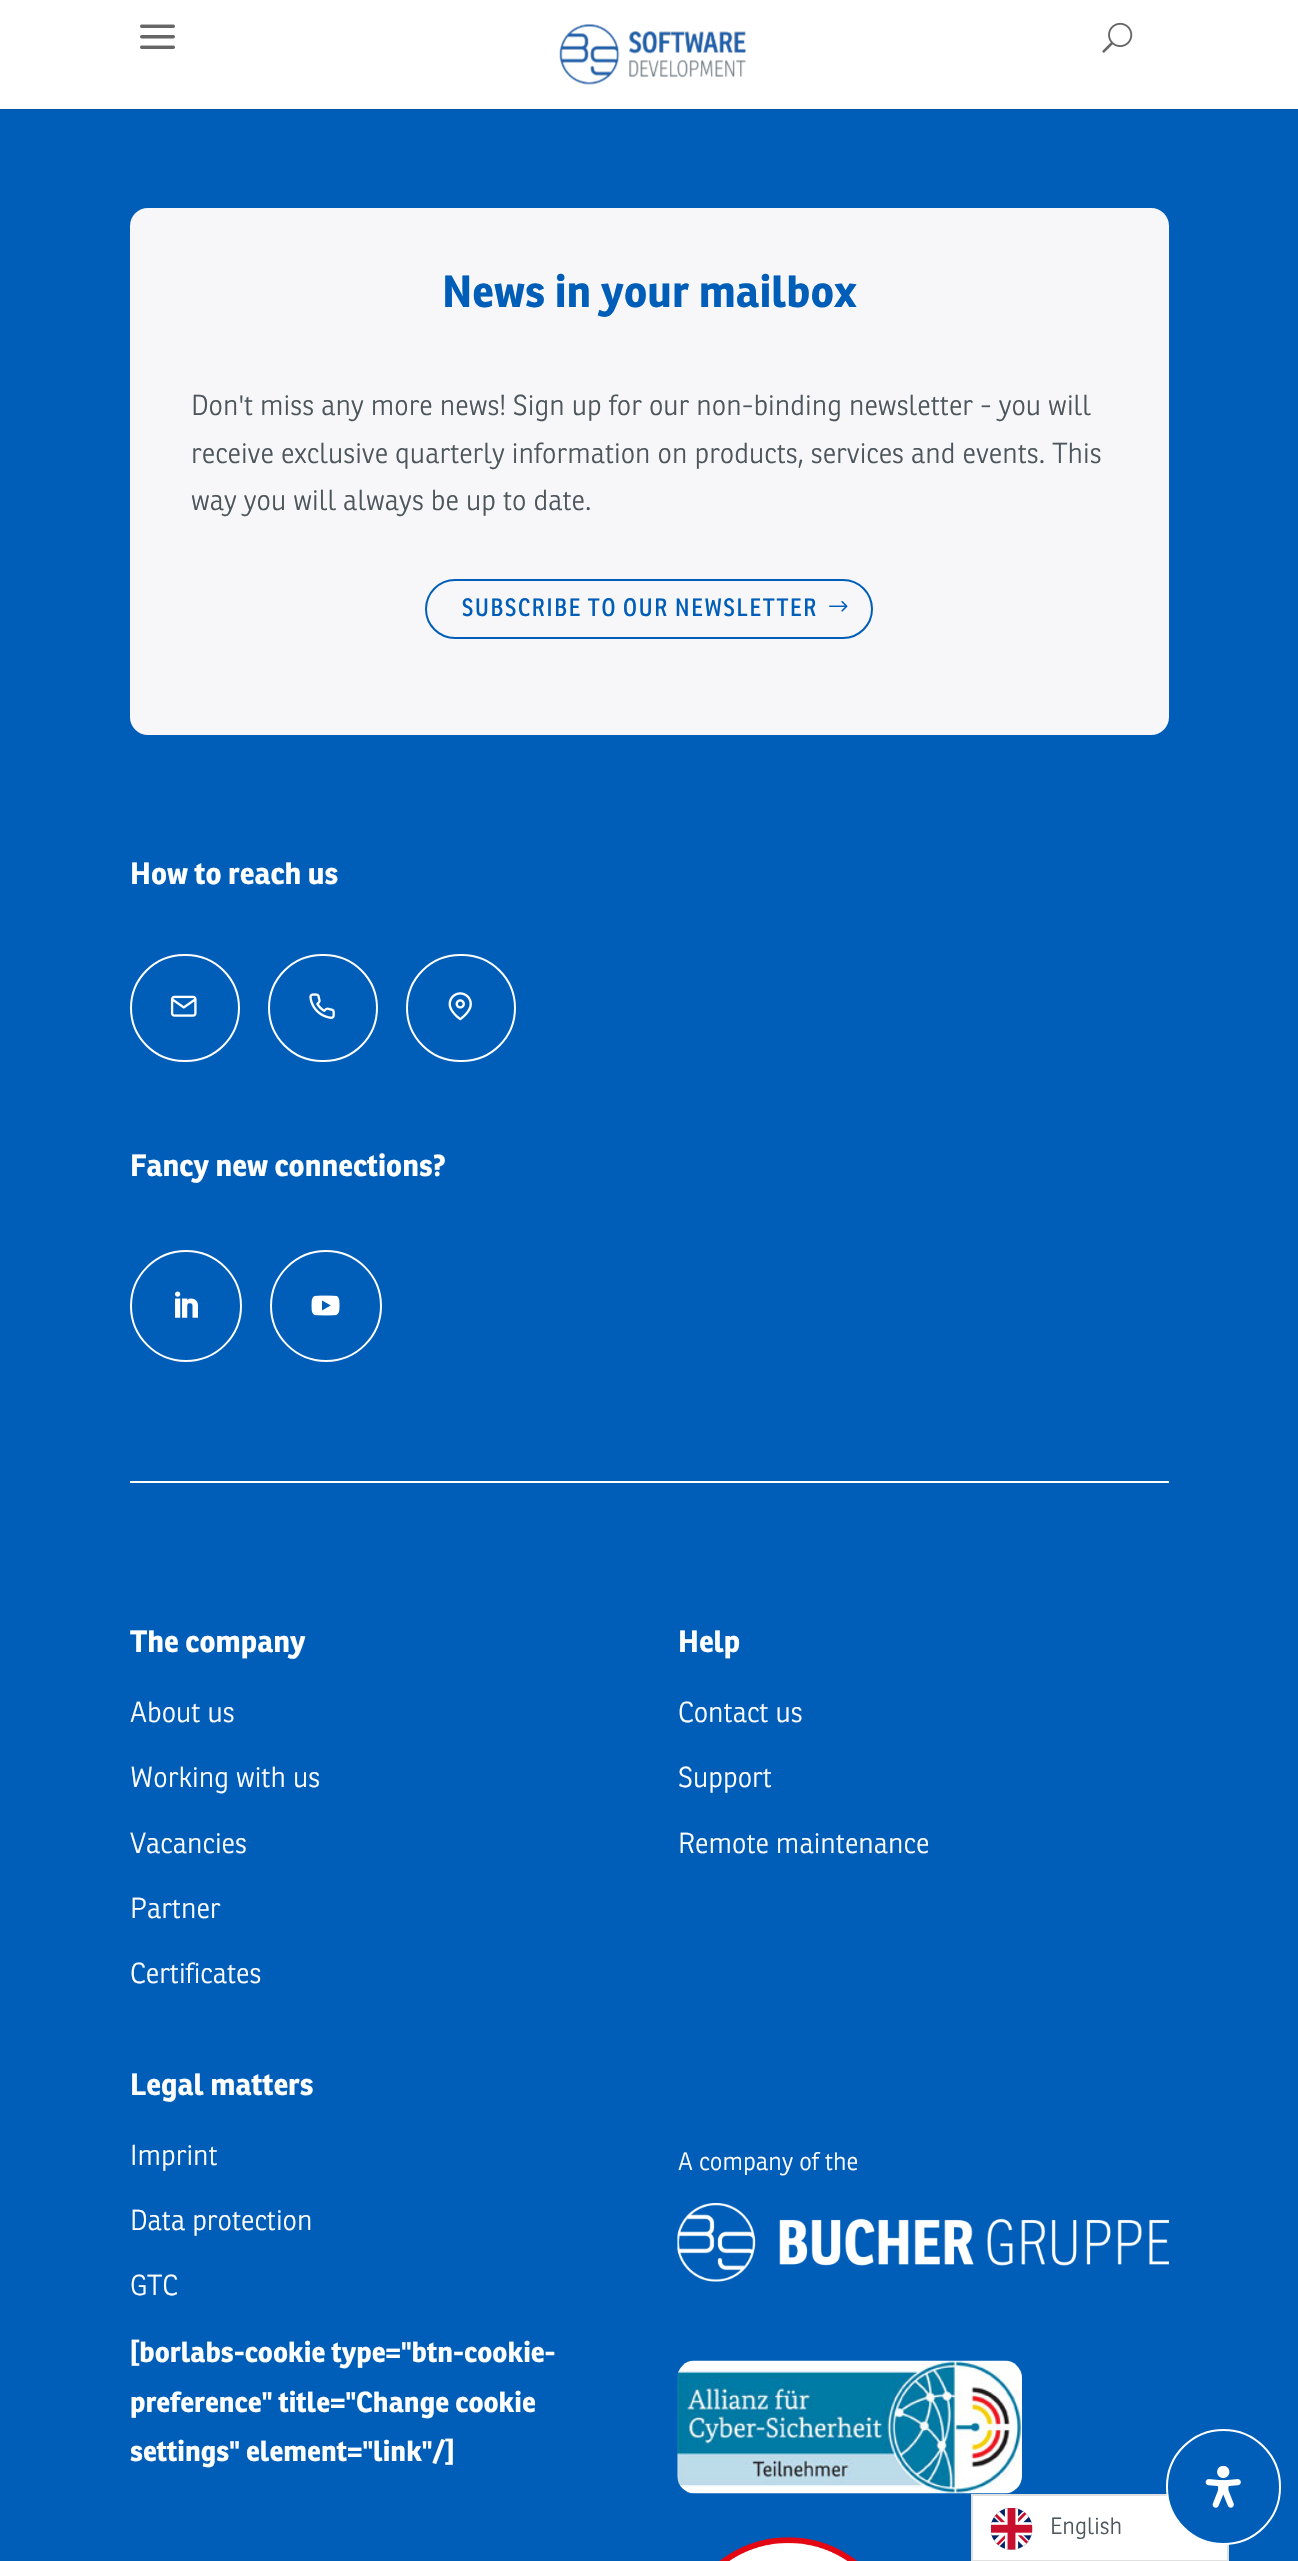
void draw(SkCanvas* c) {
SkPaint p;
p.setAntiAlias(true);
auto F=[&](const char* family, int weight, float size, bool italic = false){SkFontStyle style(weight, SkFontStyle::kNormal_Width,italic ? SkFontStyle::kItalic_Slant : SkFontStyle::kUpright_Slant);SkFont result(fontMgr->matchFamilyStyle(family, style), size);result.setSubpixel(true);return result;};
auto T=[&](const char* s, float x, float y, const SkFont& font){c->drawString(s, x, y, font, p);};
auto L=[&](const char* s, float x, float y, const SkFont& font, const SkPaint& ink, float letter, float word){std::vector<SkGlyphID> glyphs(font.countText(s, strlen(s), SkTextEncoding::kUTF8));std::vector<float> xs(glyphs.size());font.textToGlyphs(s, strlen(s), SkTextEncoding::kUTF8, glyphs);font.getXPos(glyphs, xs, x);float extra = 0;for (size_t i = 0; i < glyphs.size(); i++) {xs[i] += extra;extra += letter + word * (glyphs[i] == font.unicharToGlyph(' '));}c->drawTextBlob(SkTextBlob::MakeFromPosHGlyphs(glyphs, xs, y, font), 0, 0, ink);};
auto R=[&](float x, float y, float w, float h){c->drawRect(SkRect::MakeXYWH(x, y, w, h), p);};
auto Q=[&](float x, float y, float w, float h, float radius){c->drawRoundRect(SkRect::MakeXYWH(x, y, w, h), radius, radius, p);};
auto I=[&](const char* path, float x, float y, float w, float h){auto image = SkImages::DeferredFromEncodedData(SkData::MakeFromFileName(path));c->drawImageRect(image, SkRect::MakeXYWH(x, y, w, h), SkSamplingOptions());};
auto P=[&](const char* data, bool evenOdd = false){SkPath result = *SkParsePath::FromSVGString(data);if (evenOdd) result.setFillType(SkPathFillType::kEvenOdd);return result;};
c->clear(0xff005eb8);
p.setColor(0xff0055a6);
c->drawPath(P("M0 108v2h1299v-108h-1v106z"),p);
p.setColor(0xffffffff);
R(0,0,1298,109);
I("1.png",140,24,35,25);
I("2.png",1102,22,31,31);
I("3.png",559,24,188,61);
p.setColor(0xfff7f7f9);
Q(130,208,1039,527,18);
auto f1 = F("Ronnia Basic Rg",700,43.75);
p.setColor(0xff005eb8);
T("News in your mailbox",442,307,f1);
auto f2 = F("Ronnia",300,28);
p.setColor(0xff4c565c);
T("Don't miss any more news! Sign up for our non-binding newsletter - you will",191,415,f2);
T("receive exclusive quarterly information on products, services and events. This",191,463,f2);
T("way you will always be up to date.",191,510,f2);
p.setStroke(true);
p.setStrokeWidth(2);
p.setColor(0xff005eb8);
c->drawRoundRect(SkRect::MakeXYWH(426,580,446,58),29,29,p);
auto f3 = F("Ronnia",400,24.5);
p.setStroke(false);
L("SUBSCRIBE TO OUR NEWSLETTER",462,616,f3,p,1.75,0);
I("4.png",829,601,19,11);
auto f4 = F("Ronnia Basic Rg",700,29.75);
p.setColor(0xffffffff);
T("How to reach us",130,884,f4);
p.setStroke(true);
c->drawRoundRect(SkRect::MakeXYWH(131,955,108,106),53,53,p);
I("5.png",170,995,27,22);
c->drawRoundRect(SkRect::MakeXYWH(269,955,108,106),53,53,p);
I("6.png",309,993,26,26);
c->drawRoundRect(SkRect::MakeXYWH(407,955,108,106),53,53,p);
I("7.png",448,992,24,29);
p.setStroke(false);
T("Fancy new connections?",130,1176,f4);
p.setStroke(true);
c->drawCircle(186,1306,55,p);
I("8.png",175,1291,23,27);
c->drawCircle(326,1306,55,p);
I("9.png",311,1295,29,21);
p.setStroke(false);
R(130,1481,1039,2);
T("The company",130,1652,f4);
T("About us",130,1722,f2);
T("Working with us",130,1787,f2);
T("Vacancies",130,1853,f2);
T("Partner",130,1918,f2);
T("Certificates",130,1983,f2);
T("Help",678,1652,f4);
T("Contact us",678,1722,f2);
T("Support",678,1787,f2);
T("Remote maintenance",678,1853,f2);
T("Legal matters",130,2095,f4);
T("Imprint",130,2165,f2);
T("Data protection",130,2230,f2);
T("GTC",130,2295,f2);
auto f5 = F("Ronnia Basic Rg",700,28);
T("[borlabs-cookie type=\"btn-cookie-",130,2362,f5);
T("preference\" title=\"Change cookie",130,2412,f5);
T("settings\" element=\"link\"/]",130,2461,f5);
auto f6 = F("Ronnia",300,24.5);
T("A company of the",678,2170,f6);
I("10.png",677,2203,492,79);
I("11.png",677,2360,345,134);
I("12.png",719,2537,138,24);
c->drawRect(SkRect::MakeXYWH(972,2495,256,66),p);
p.setStroke(true);
p.setColor(0xffe0e0e0);
c->drawRect(SkRect::MakeXYWH(972,2495,256,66),p);
I("13.png",991,2508,42,42);
auto f7 = F("Ronnia",300,23);
p.setStroke(false);
p.setColor(0xff4c565c);
T("English",1050,2534,f7);
p.setColor(0xff005eb8);
c->drawRoundRect(SkRect::MakeXYWH(1167,2430,113,114),56.5,56.5,p);
p.setStroke(true);
p.setColor(0xffffffff);
c->drawRoundRect(SkRect::MakeXYWH(1167,2430,113,114),56.5,56.5,p);
I("14.png",1205,2466,36,42);
}
